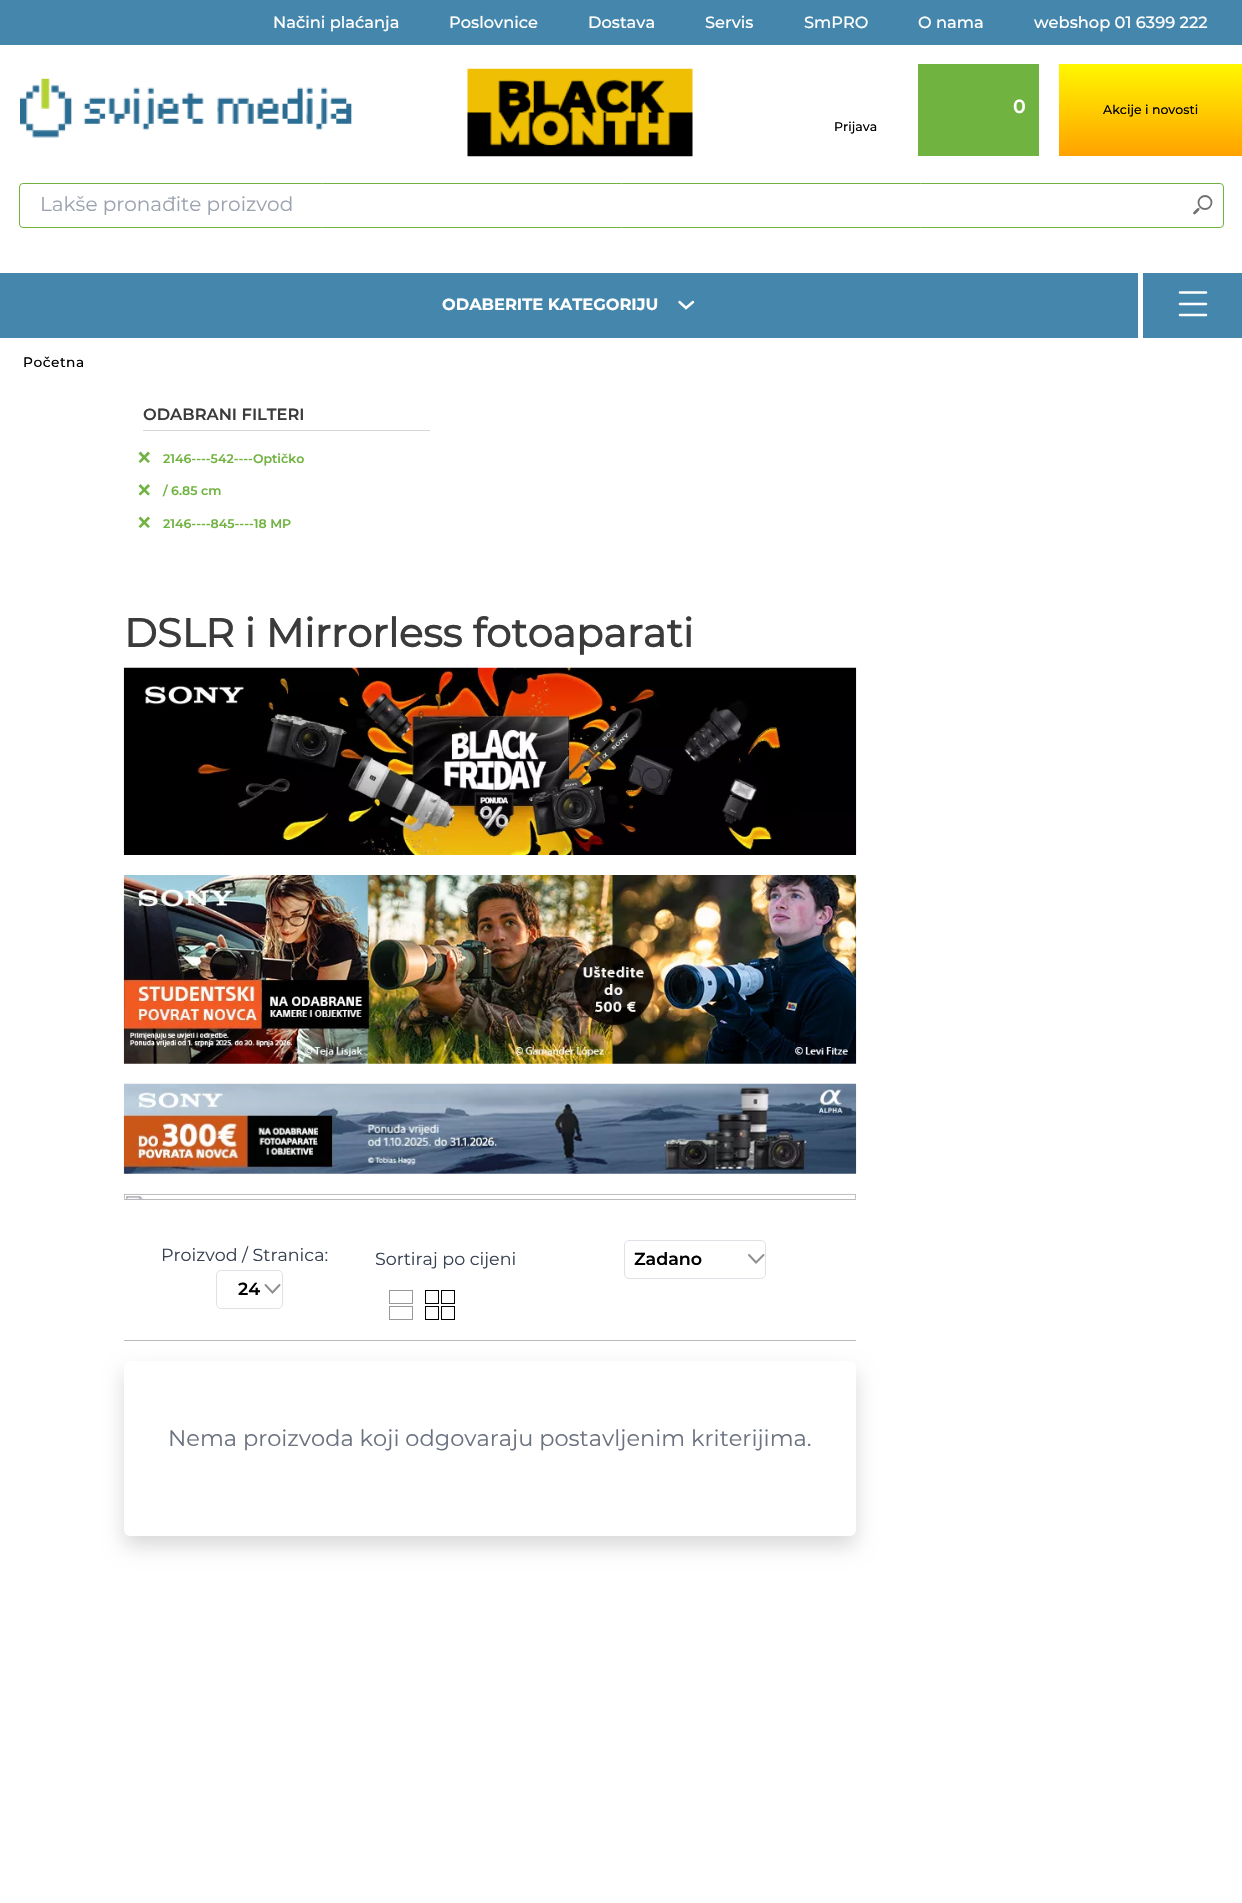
void draw(SkCanvas* c) {
SkPaint p;
p.setAntiAlias(true);
auto F=[&](const char* family, int weight, float size, bool italic = false){SkFontStyle style(weight, SkFontStyle::kNormal_Width,italic ? SkFontStyle::kItalic_Slant : SkFontStyle::kUpright_Slant);SkFont result(fontMgr->matchFamilyStyle(family, style), size);result.setSubpixel(true);return result;};
auto T=[&](const char* s, float x, float y, const SkFont& font){c->drawString(s, x, y, font, p);};
auto L=[&](const char* s, float x, float y, const SkFont& font, const SkPaint& ink, float letter, float word){std::vector<SkGlyphID> glyphs(font.countText(s, strlen(s), SkTextEncoding::kUTF8));std::vector<float> xs(glyphs.size());font.textToGlyphs(s, strlen(s), SkTextEncoding::kUTF8, glyphs);font.getXPos(glyphs, xs, x);float extra = 0;for (size_t i = 0; i < glyphs.size(); i++) {xs[i] += extra;extra += letter + word * (glyphs[i] == font.unicharToGlyph(' '));}c->drawTextBlob(SkTextBlob::MakeFromPosHGlyphs(glyphs, xs, y, font), 0, 0, ink);};
auto R=[&](float x, float y, float w, float h){c->drawRect(SkRect::MakeXYWH(x, y, w, h), p);};
auto Q=[&](float x, float y, float w, float h, float radius){c->drawRoundRect(SkRect::MakeXYWH(x, y, w, h), radius, radius, p);};
auto I=[&](const char* path, float x, float y, float w, float h){auto image = SkImages::DeferredFromEncodedData(SkData::MakeFromFileName(path));c->drawImageRect(image, SkRect::MakeXYWH(x, y, w, h), SkSamplingOptions());};
auto P=[&](const char* data, bool evenOdd = false){SkPath result = *SkParsePath::FromSVGString(data);if (evenOdd) result.setFillType(SkPathFillType::kEvenOdd);return result;};
c->clear(0xffffffff);
p.setColor(0xff4587ac);
R(0,0,1242,45);
auto f1 = F("Montserrat",500,16.25);
p.setColor(0xffffffff);
T("Načini plaćanja",273,28,f1);
T("Poslovnice",449,28,f1);
T("Dostava",588,28,f1);
T("Servis",705,28,f1);
T("SmPRO",804,28,f1);
T("O nama",918,28,f1);
T("webshop 01 6399 222",1034,28,f1);
I("1.png",20,78,332,60);
I("2.png",467,68,226,89);
p.setColor(0xff70b340);
R(918,64,121,92);
auto f2 = F("Montserrat",600,19);
p.setColor(0xffffffff);
T("0",1013,113,f2);
auto f3 = F("Montserrat",500,12.5);
p.setColor(0xff000000);
T("Prijava",834,131,f3);
{
const SkColor colors[] = {0xfffff700,0xffffa200};
const float stops[] = {0,1};
const SkPoint ends[] = {{1151,64}, {1151,156}};
p.setShader(SkGradientShader::MakeLinear(ends, colors, stops, 2, SkTileMode::kClamp));
p.setAlpha(255);
}
R(1059,64,183,92);
p.setShader(nullptr);
p.setColor(0xff000000);
T("Akcije i novosti",1103,114,f3);
p.setStroke(true);
p.setStrokeWidth(1.8);
p.setColor(0xff707070);
c->drawCircle(1205,202.5,6.5,p);
p.setStrokeWidth(.9);
c->drawPath(P("M1199.5 208l-1.5 1.5"),p);
p.setStrokeWidth(2.7);
p.setStrokeCap(SkPaint::kRound_Cap);
c->drawPath(P("M1198 209.5l-3.5 3.5"),p);
p.setStrokeWidth(1);
p.setStrokeCap(SkPaint::kButt_Cap);
p.setColor(0xff70b340);
c->drawRoundRect(SkRect::MakeXYWH(19.5,183.5,1204,44),3.5,3.5,p);
auto f4 = F("Montserrat",400,20);
p.setStroke(false);
p.setColor(0xff9ca3af);
T("Lakše pronađite proizvod",40,211,f4);
p.setColor(0xff4587ac);
R(0,273,1138,65);
auto f5 = F("Montserrat",700,16.25);
p.setColor(0xffffffff);
T("ODABERITE KATEGORIJU",442,310,f5);
p.setStroke(true);
p.setStrokeWidth(2.5);
p.setStrokeCap(SkPaint::kRound_Cap);
c->drawPath(P("M679.5 302l6.5 6l7-6"),p);
p.setStroke(false);
p.setColor(0xff4587ac);
R(1143,273,99,65);
p.setStroke(true);
p.setColor(0xffffffff);
c->drawPath(P("M1180 292.5h26m-26 11.5h26m-26 11h26"),p);
auto f6 = F("Montserrat",500,13.75);
p.setStroke(false);
p.setColor(0xff000000);
L("Početna",23,367,f6,p,.5,0);
p.setColor(0xffd6d6d6);
R(143,430,287,1);
auto f7 = F("Montserrat",600,16.25);
p.setColor(0xff3b3b3b);
T("ODABRANI FILTERI",143,420,f7);
p.setColor(0xff70b340);
c->drawPath(P("M148 451.5l2 2l-9.5 9.5l-2-1.5z"),p);
c->drawPath(P("M138.5 453.5l2-2l9.5 10l-2 1.5z"),p);
auto f8 = F("Montserrat",600,12.5);
T("2146----542----Optičko",163,463,f8);
c->drawPath(P("M148 484l2 2l-9.5 9.5l-2-1.5z"),p);
c->drawPath(P("M138.5 486l2-2l9.5 10l-2 1.5z"),p);
T("/ 6.85 cm",163,495,f8);
c->drawPath(P("M148 516.5l2 2l-9.5 9.5l-2-1.5z"),p);
c->drawPath(P("M138.5 518.5l2-2l9.5 10l-2 1.5z"),p);
T("2146----845----18 MP",163,528,f8);
auto f9 = F("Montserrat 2",700,40);
p.setColor(0xff3b3b3b);
T("DSLR i Mirrorless fotoaparati",124,647,f9);
p.setColor(0xffb9b9b9);
R(124,1199,732,1);
I("3.png",123,667,734,188);
I("4.png",123,875,734,189);
I("5.png",123,1083,734,91);
I("6.png",124,1193,732,6);
R(124,1340,732,1);
auto f10 = F("Montserrat",400,17.5);
p.setColor(0xff374151);
T("Proizvod / Stranica:",161,1261,f10);
p.setStroke(true);
p.setStrokeWidth(2);
p.setColor(0xff8f8f8f);
c->drawPath(P("M265.5 1285l7 7.5l7-7.5"),p);
p.setStrokeWidth(1);
p.setStrokeCap(SkPaint::kButt_Cap);
p.setColor(0xffdee2e6);
c->drawRoundRect(SkRect::MakeXYWH(216.5,1270.5,66,38),4.5,4.5,p);
auto f11 = F("Montserrat",600,17.5);
p.setStroke(false);
p.setColor(0xff000000);
T("24",238,1295,f11);
p.setColor(0xff374151);
T("Sortiraj po cijeni",375,1265,f10);
p.setStroke(true);
p.setStrokeWidth(2);
p.setStrokeCap(SkPaint::kRound_Cap);
p.setColor(0xff8f8f8f);
c->drawPath(P("M749 1255l7 7.5l7.5-7.5"),p);
p.setStrokeWidth(1);
p.setStrokeCap(SkPaint::kButt_Cap);
p.setColor(0xffdee2e6);
c->drawRoundRect(SkRect::MakeXYWH(624.5,1240.5,141,38),4.5,4.5,p);
p.setStroke(false);
p.setColor(0xff000000);
T("Zadano",634,1265,f11);
p.setStroke(true);
p.setColor(0xff999999);
c->drawRect(SkRect::MakeXYWH(389.5,1290.5,23,13),p);
c->drawRect(SkRect::MakeXYWH(389.5,1306.5,23,13),p);
p.setColor(0xff000000);
c->drawRect(SkRect::MakeXYWH(425.5,1290.5,13,13),p);
c->drawRect(SkRect::MakeXYWH(425.5,1306.5,13,13),p);
c->drawRect(SkRect::MakeXYWH(441.5,1290.5,13,13),p);
c->drawRect(SkRect::MakeXYWH(441.5,1306.5,13,13),p);
p.setStroke(false);
p.setColor(0x26000000);
p.setMaskFilter(SkMaskFilter::MakeBlur(kNormal_SkBlurStyle, 10));
c->drawRoundRect(SkRect::MakeXYWH(124,1371,732,175),6,6,p);
p.setMaskFilter(nullptr);
p.setColor(0xffffffff);
Q(124,1361,732,175,6);
auto f12 = F("Montserrat",400,22.5);
p.setColor(0xff6b7280);
T("Nema proizvoda koji odgovaraju postavljenim kriterijima.",168,1446,f12);
}
